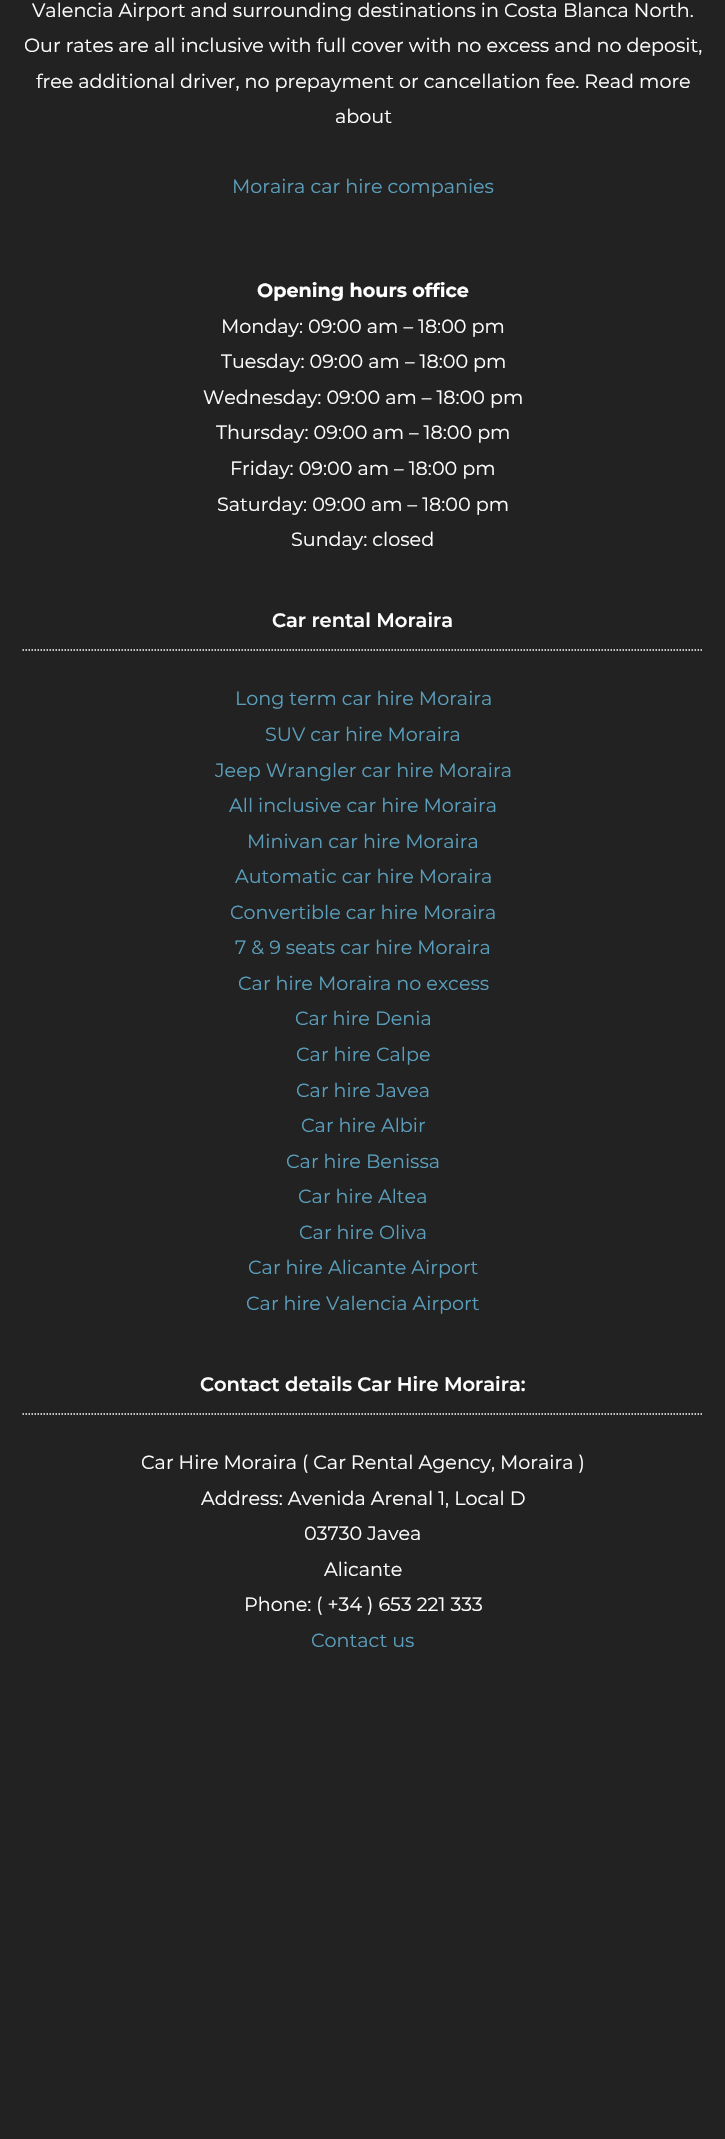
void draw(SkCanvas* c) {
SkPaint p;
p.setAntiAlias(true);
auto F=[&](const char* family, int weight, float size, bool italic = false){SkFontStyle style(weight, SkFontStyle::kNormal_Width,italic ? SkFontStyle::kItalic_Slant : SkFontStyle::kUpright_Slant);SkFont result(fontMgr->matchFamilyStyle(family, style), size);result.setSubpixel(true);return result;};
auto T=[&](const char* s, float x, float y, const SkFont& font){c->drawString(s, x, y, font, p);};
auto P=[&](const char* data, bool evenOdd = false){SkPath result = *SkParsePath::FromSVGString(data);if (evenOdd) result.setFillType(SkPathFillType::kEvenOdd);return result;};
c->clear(0xff222222);
auto f1 = F("Montserrat",400,19.15);
p.setColor(0xffffffff);
T("Valencia Airport and surrounding destinations in Costa Blanca North.",32,17,f1);
T("Our rates are all inclusive with full cover with no excess and no deposit,",24,52,f1);
T("free additional driver, no prepayment or cancellation fee. Read more",36,88,f1);
T("about",335,123,f1);
p.setColor(0xff5a9ebb);
T("Moraira car hire companies",232,193,f1);
auto f2 = F("Montserrat",700,19.15);
p.setColor(0xffffffff);
T("Opening hours office",257,297,f2);
T("Monday: 09:00 am – 18:00 pm",221,333,f1);
T("Tuesday: 09:00 am – 18:00 pm",221,368,f1);
T("Wednesday: 09:00 am – 18:00 pm",203,404,f1);
T("Thursday: 09:00 am – 18:00 pm",216,439,f1);
T("Friday: 09:00 am – 18:00 pm",230,475,f1);
T("Saturday: 09:00 am – 18:00 pm",217,511,f1);
T("Sunday: closed",291,546,f1);
p.setStroke(true);
p.setStrokeWidth(1.5);
p.setPathEffect(SkDashPathEffect::Make({{1.5f,1.5f}}, 0));
c->drawPath(P("M22.5 650h681"),p);
p.setPathEffect(nullptr);
auto f3 = F("Montserrat",600,19.5);
p.setStroke(false);
T("Car rental Moraira",272,627,f3);
p.setColor(0xff5a9ebb);
T("Long term car hire Moraira",235,705,f1);
T("SUV car hire Moraira",265,741,f1);
T("Jeep Wrangler car hire Moraira",215,777,f1);
T("All inclusive car hire Moraira",229,812,f1);
T("Minivan car hire Moraira",247,848,f1);
T("Automatic car hire Moraira",235,883,f1);
T("Convertible car hire Moraira",230,919,f1);
T("7 & 9 seats car hire Moraira",235,954,f1);
T("Car hire Moraira no excess",238,990,f1);
T("Car hire Denia",295,1025,f1);
T("Car hire Calpe",296,1061,f1);
T("Car hire Javea",296,1097,f1);
T("Car hire Albir",301,1132,f1);
T("Car hire Benissa",286,1168,f1);
T("Car hire Altea",298,1203,f1);
T("Car hire Oliva",299,1239,f1);
T("Car hire Alicante Airport",248,1274,f1);
T("Car hire Valencia Airport",246,1310,f1);
p.setStroke(true);
p.setColor(0xffffffff);
p.setPathEffect(SkDashPathEffect::Make({{1.5f,1.5f}}, 0));
c->drawPath(P("M22.5 1414h681"),p);
p.setPathEffect(nullptr);
p.setStroke(false);
T("Contact details Car Hire Moraira:",200,1391,f3);
T("Car Hire Moraira ( Car Rental Agency, Moraira )",141,1469,f1);
T("Address: Avenida Arenal 1, Local D",201,1505,f1);
T("03730 Javea",304,1540,f1);
T("Alicante",324,1576,f1);
T("Phone: ( +34 ) 653 221 333",244,1611,f1);
p.setColor(0xff5a9ebb);
T("Contact us",311,1647,f1);
}
